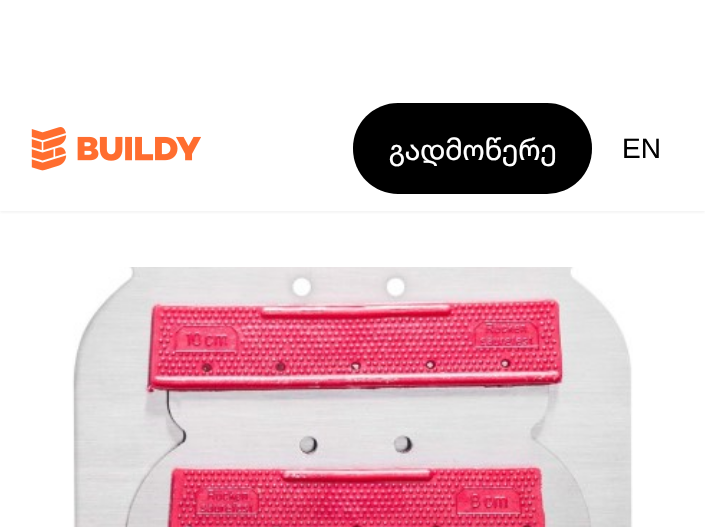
void draw(SkCanvas* c) {
SkPaint p;
p.setAntiAlias(true);
auto F=[&](const char* family, int weight, float size, bool italic = false){SkFontStyle style(weight, SkFontStyle::kNormal_Width,italic ? SkFontStyle::kItalic_Slant : SkFontStyle::kUpright_Slant);SkFont result(fontMgr->matchFamilyStyle(family, style), size);result.setSubpixel(true);return result;};
auto T=[&](const char* s, float x, float y, const SkFont& font){c->drawString(s, x, y, font, p);};
auto Q=[&](float x, float y, float w, float h, float radius){c->drawRoundRect(SkRect::MakeXYWH(x, y, w, h), radius, radius, p);};
auto I=[&](const char* path, float x, float y, float w, float h){auto image = SkImages::DeferredFromEncodedData(SkData::MakeFromFileName(path));c->drawImageRect(image, SkRect::MakeXYWH(x, y, w, h), SkSamplingOptions());};
c->clear(0xffffffff);
c->save();
c->clipRect(SkRect::MakeXYWH(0,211,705,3));
p.setColor(0x40bababa);
p.setMaskFilter(SkMaskFilter::MakeBlur(kNormal_SkBlurStyle, 1.5));
c->drawRect(SkRect::MakeXYWH(0,1,705,211),p);
p.setMaskFilter(nullptr);
c->restore();
I("1.png",31,127,170,44);
p.setColor(0xff000000);
Q(353,103,239,91,45);
auto f1 = F("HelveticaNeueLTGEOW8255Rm",400,30);
p.setColor(0xffffffff);
T("გადმოწერე",389,160,f1);
auto f2 = F("Liberation Sans",400,28);
p.setColor(0xff000000);
T("EN",622,158,f2);
I("2.png",72,267,561,260);
}
